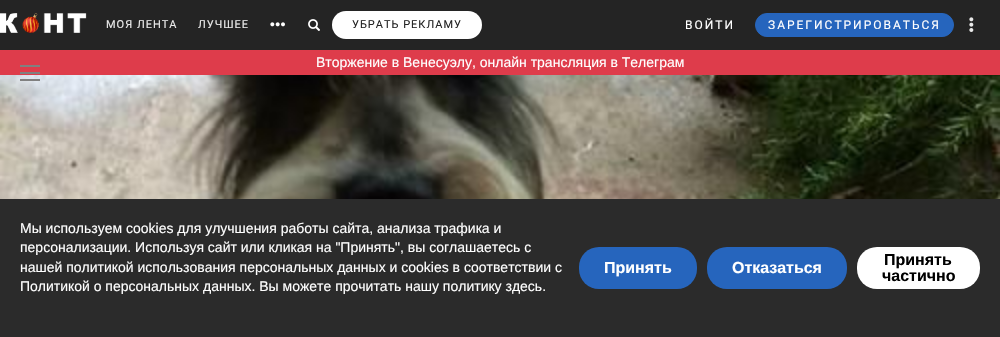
void draw(SkCanvas* c) {
SkPaint p;
p.setAntiAlias(true);
auto F=[&](const char* family, int weight, float size, bool italic = false){SkFontStyle style(weight, SkFontStyle::kNormal_Width,italic ? SkFontStyle::kItalic_Slant : SkFontStyle::kUpright_Slant);SkFont result(fontMgr->matchFamilyStyle(family, style), size);result.setSubpixel(true);return result;};
auto T=[&](const char* s, float x, float y, const SkFont& font){c->drawString(s, x, y, font, p);};
auto L=[&](const char* s, float x, float y, const SkFont& font, const SkPaint& ink, float letter, float word){std::vector<SkGlyphID> glyphs(font.countText(s, strlen(s), SkTextEncoding::kUTF8));std::vector<float> xs(glyphs.size());font.textToGlyphs(s, strlen(s), SkTextEncoding::kUTF8, glyphs);font.getXPos(glyphs, xs, x);float extra = 0;for (size_t i = 0; i < glyphs.size(); i++) {xs[i] += extra;extra += letter + word * (glyphs[i] == font.unicharToGlyph(' '));}c->drawTextBlob(SkTextBlob::MakeFromPosHGlyphs(glyphs, xs, y, font), 0, 0, ink);};
auto R=[&](float x, float y, float w, float h){c->drawRect(SkRect::MakeXYWH(x, y, w, h), p);};
auto Q=[&](float x, float y, float w, float h, float radius){c->drawRoundRect(SkRect::MakeXYWH(x, y, w, h), radius, radius, p);};
auto I=[&](const char* path, float x, float y, float w, float h){auto image = SkImages::DeferredFromEncodedData(SkData::MakeFromFileName(path));c->drawImageRect(image, SkRect::MakeXYWH(x, y, w, h), SkSamplingOptions());};
c->clear(0xffde3c4b);
p.setColor(0xff242424);
R(0,0,1000,50);
I("1.png",0,13,87,20);
auto f1 = F("Roboto",400,11);
p.setColor(0xffe9e9e9);
L("МОЯ ЛЕНТА",106,28,f1,p,1,0);
L("ЛУЧШЕЕ",198,28,f1,p,1,0);
I("2.png",270,22,15,5);
I("3.png",308,19,12,12);
p.setColor(0xffffffff);
Q(332,11,150,28,14);
p.setColor(0xff242424);
L("УБРАТЬ РЕКЛАМУ",352,28,f1,p,1,0);
auto f2 = F("Roboto",400,12);
p.setColor(0xffffffff);
L("ВОЙТИ",685,29,f2,p,2,0);
p.setColor(0xff2665bd);
c->drawRoundRect(SkRect::MakeXYWH(755.5,13.5,198,23),11.5,11.5,p);
p.setStroke(true);
p.setStrokeWidth(1);
c->drawRoundRect(SkRect::MakeXYWH(755.5,13.5,198,23),11.5,11.5,p);
p.setStroke(false);
p.setColor(0xffffffff);
L("ЗАРЕГИСТРИРОВАТЬСЯ",768,29,f2,p,2,0);
I("4.png",969,17,5,15);
auto f3 = F("Liberation Sans",400,14);
T("Вторжение в Венесуэлу, онлайн трансляция в Телеграм",316,67,f3);
p.setColor(0xff808080);
R(20,65,20,2);
R(20,72,20,2);
I("5.png",0,75,1000,124);
R(20,79,20,2);
p.setColor(0xff2b2b2b);
R(0,199,1000,138);
p.setColor(0xffffffff);
T("Мы используем cookies для улучшения работы сайта, анализа трафика и",20,233,f3);
T("персонализации. Используя сайт или кликая на \"Принять\", вы соглашаетесь с",20,252,f3);
T("нашей политикой использования персональных данных и cookies в соответствии с",20,272,f3);
T("Политикой о персональных данных. Вы можете прочитать нашу политику здесь.",20,291,f3);
p.setColor(0xff2665bd);
Q(579,247,118,42,20);
auto f4 = F("Liberation Sans",700,16);
p.setColor(0xffffffff);
T("Принять",604,273,f4);
p.setColor(0xff2665bd);
Q(707,247,140,42,20);
p.setColor(0xffffffff);
T("Отказаться",732,273,f4);
Q(857,247,123,42,20);
p.setColor(0xff000000);
T("Принять",884,265,f4);
T("частично",882,281,f4);
}
